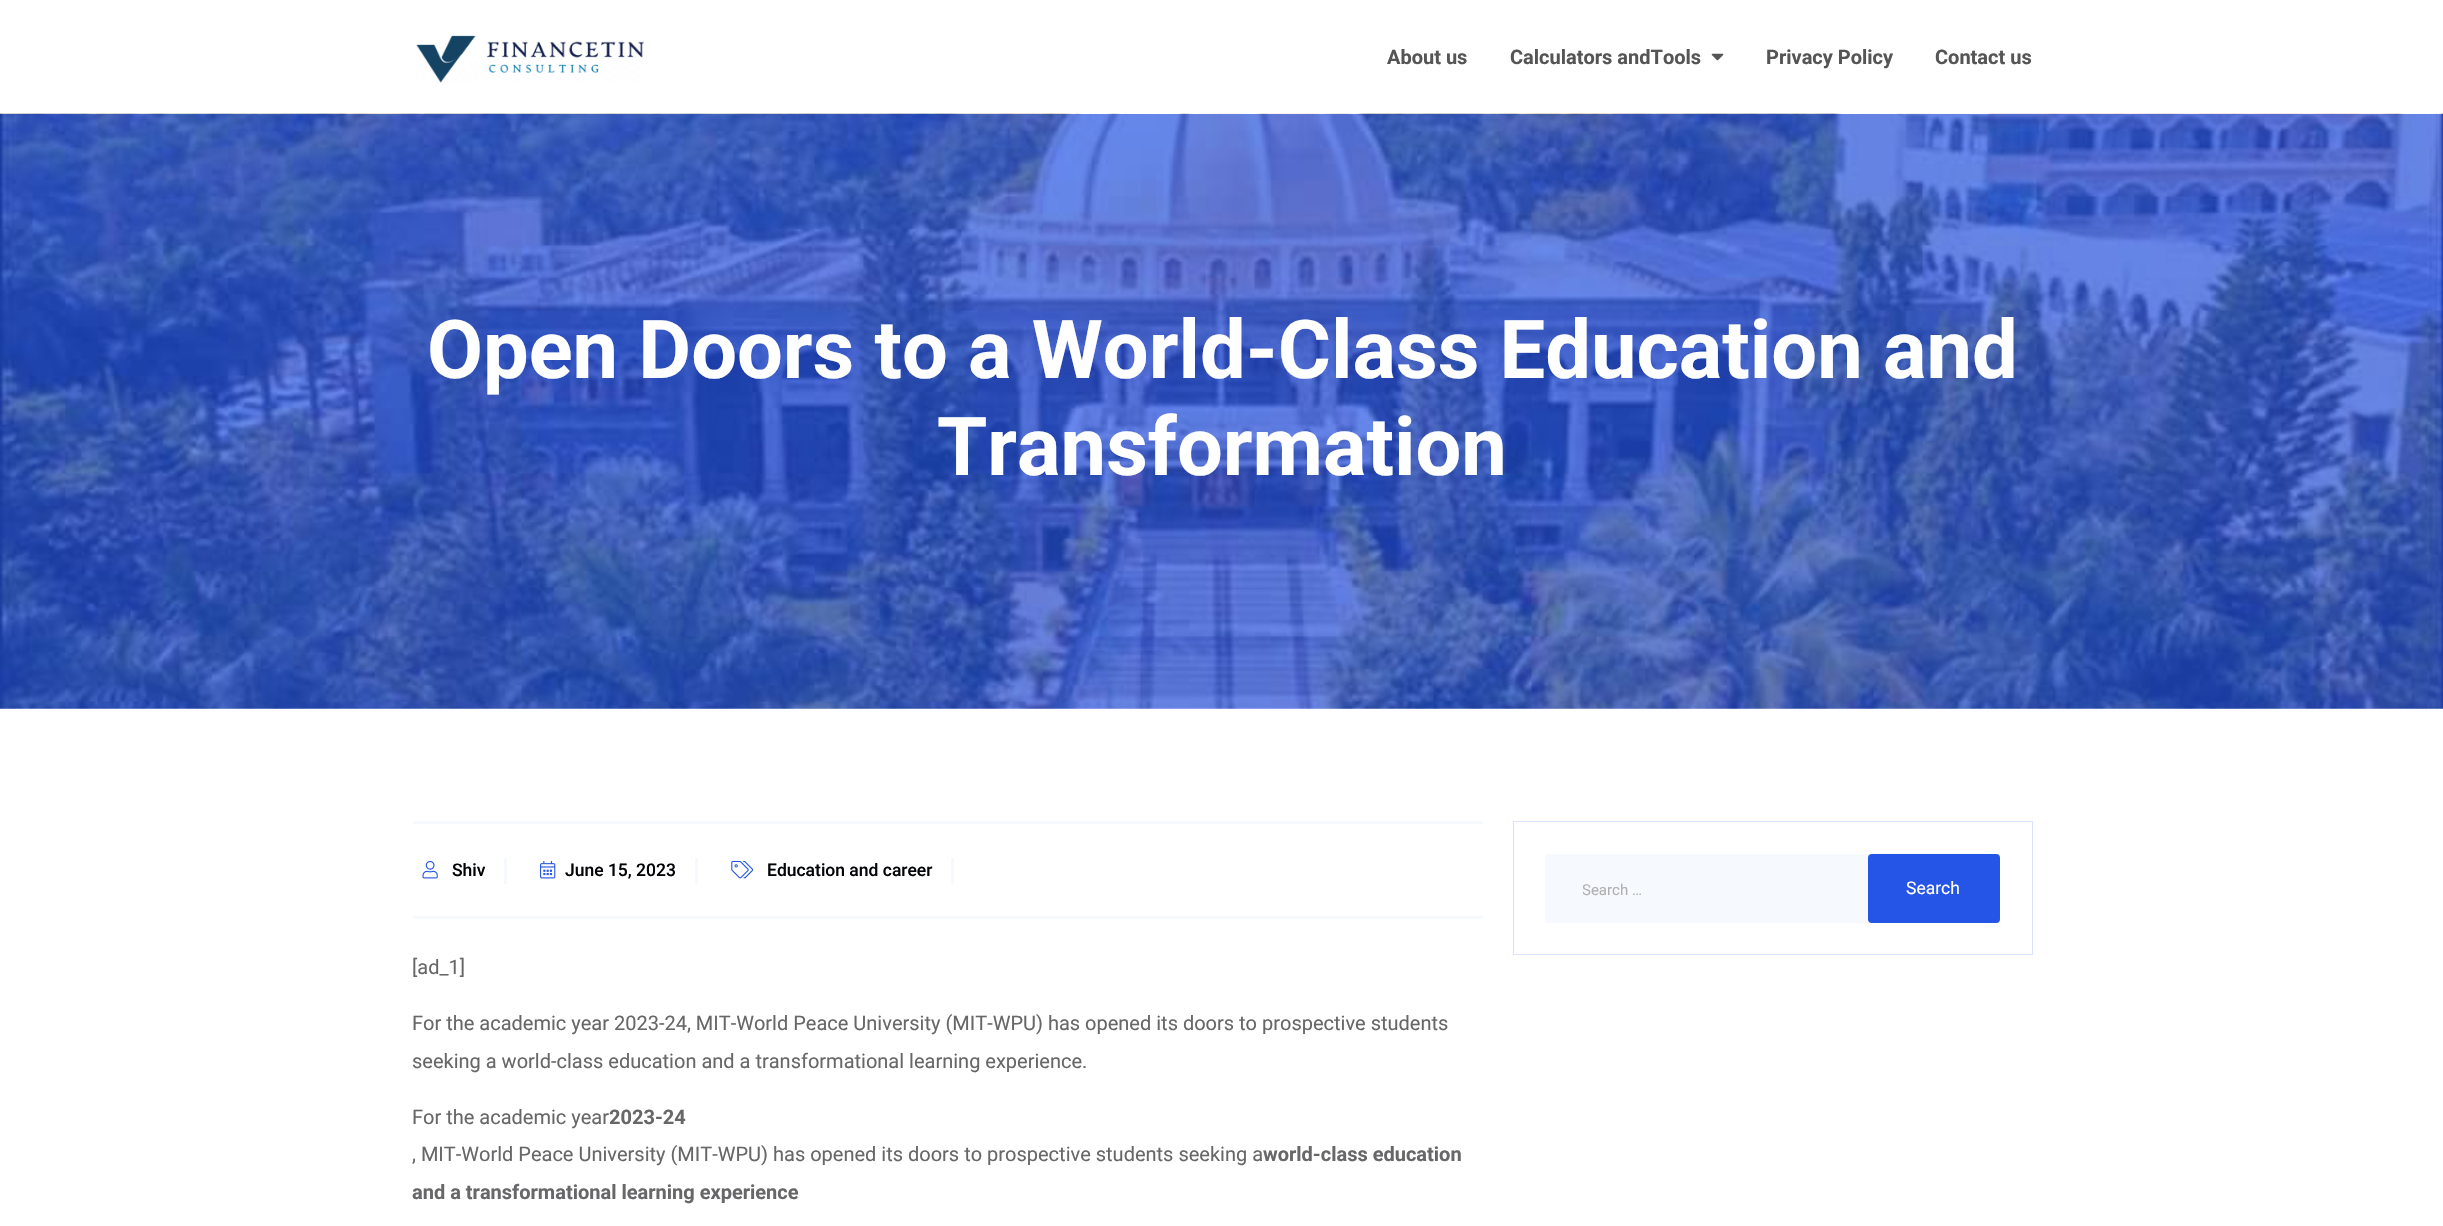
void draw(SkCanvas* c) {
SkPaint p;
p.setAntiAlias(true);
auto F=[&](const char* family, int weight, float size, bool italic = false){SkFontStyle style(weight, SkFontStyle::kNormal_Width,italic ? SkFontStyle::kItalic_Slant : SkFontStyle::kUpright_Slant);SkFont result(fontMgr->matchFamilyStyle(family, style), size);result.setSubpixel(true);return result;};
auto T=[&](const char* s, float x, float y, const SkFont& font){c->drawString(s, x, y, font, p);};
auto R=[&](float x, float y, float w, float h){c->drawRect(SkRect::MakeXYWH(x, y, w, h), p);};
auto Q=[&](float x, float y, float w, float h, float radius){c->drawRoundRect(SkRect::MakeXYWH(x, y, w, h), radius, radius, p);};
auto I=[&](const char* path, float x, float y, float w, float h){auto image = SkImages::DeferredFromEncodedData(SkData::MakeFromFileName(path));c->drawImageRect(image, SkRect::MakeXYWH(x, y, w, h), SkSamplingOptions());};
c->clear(0xffffffff);
I("1.png",416,35,228,48);
auto f1 = F("Roboto",700,20);
p.setColor(0xff555555);
T("About us",1387,64,f1);
T("Calculators andTools",1510,64,f1);
I("2.png",1711,53,13,8);
T("Privacy Policy",1766,64,f1);
T("Contact us",1935,64,f1);
I("3.png",0,113,2443,596);
auto f2 = F("Roboto",700,81.25);
p.setColor(0xffffffff);
T("Open Doors to a World-Class Education and",427,378,f2);
T("Transformation",937,475,f2);
p.setColor(0xfff6faff);
R(413,821,1070,3);
R(413,916,1070,3);
R(504,858,3,26);
I("4.png",422,860,16,19);
auto f3 = F("Roboto",500,17.5);
p.setColor(0xff020306);
T("Shiv",452,876,f3);
p.setColor(0xfff6faff);
R(695,858,3,26);
I("5.png",540,860,16,19);
p.setColor(0xff020306);
T("June 15, 2023",565,876,f3);
p.setColor(0xfff6faff);
R(951,858,3,26);
I("6.png",731,860,23,19);
p.setColor(0xff020306);
T("Education and career",767,876,f3);
auto f4 = F("Roboto",400,20);
p.setColor(0xff676769);
T("[ad_1]",412,974,f4);
T("For the academic year 2023-24, MIT-World Peace University (MIT-WPU) has opened its doors to prospective students",412,1030,f4);
T("seeking a world-class education and a transformational learning experience.",412,1068,f4);
T("For the academic year",412,1124,f4);
T("2023-24",609,1124,f1);
T(", MIT-World Peace University (MIT-WPU) has opened its doors to prospective students seeking a",412,1161,f4);
T("world-class education",1263,1161,f1);
T("and a transformational learning experience",412,1199,f1);
p.setStroke(true);
p.setStrokeWidth(1);
p.setColor(0xffd9e2fd);
c->drawRect(SkRect::MakeXYWH(1513.5,821.5,519,133),p);
p.setStroke(false);
p.setColor(0xfff6faff);
Q(1545,854,455,69,4);
c->save();
c->clipRect(SkRect::MakeXYWH(1583,881,361,18));
auto f5 = F("Roboto",400,15);
p.setColor(0xffb0b0b0);
T("Search …",1582,895,f5);
c->restore();
p.setColor(0xff2455e6);
Q(1868,854,132,69,4);
auto f6 = F("Roboto",400,17.5);
p.setColor(0xffffffff);
T("Search",1906,894,f6);
}
